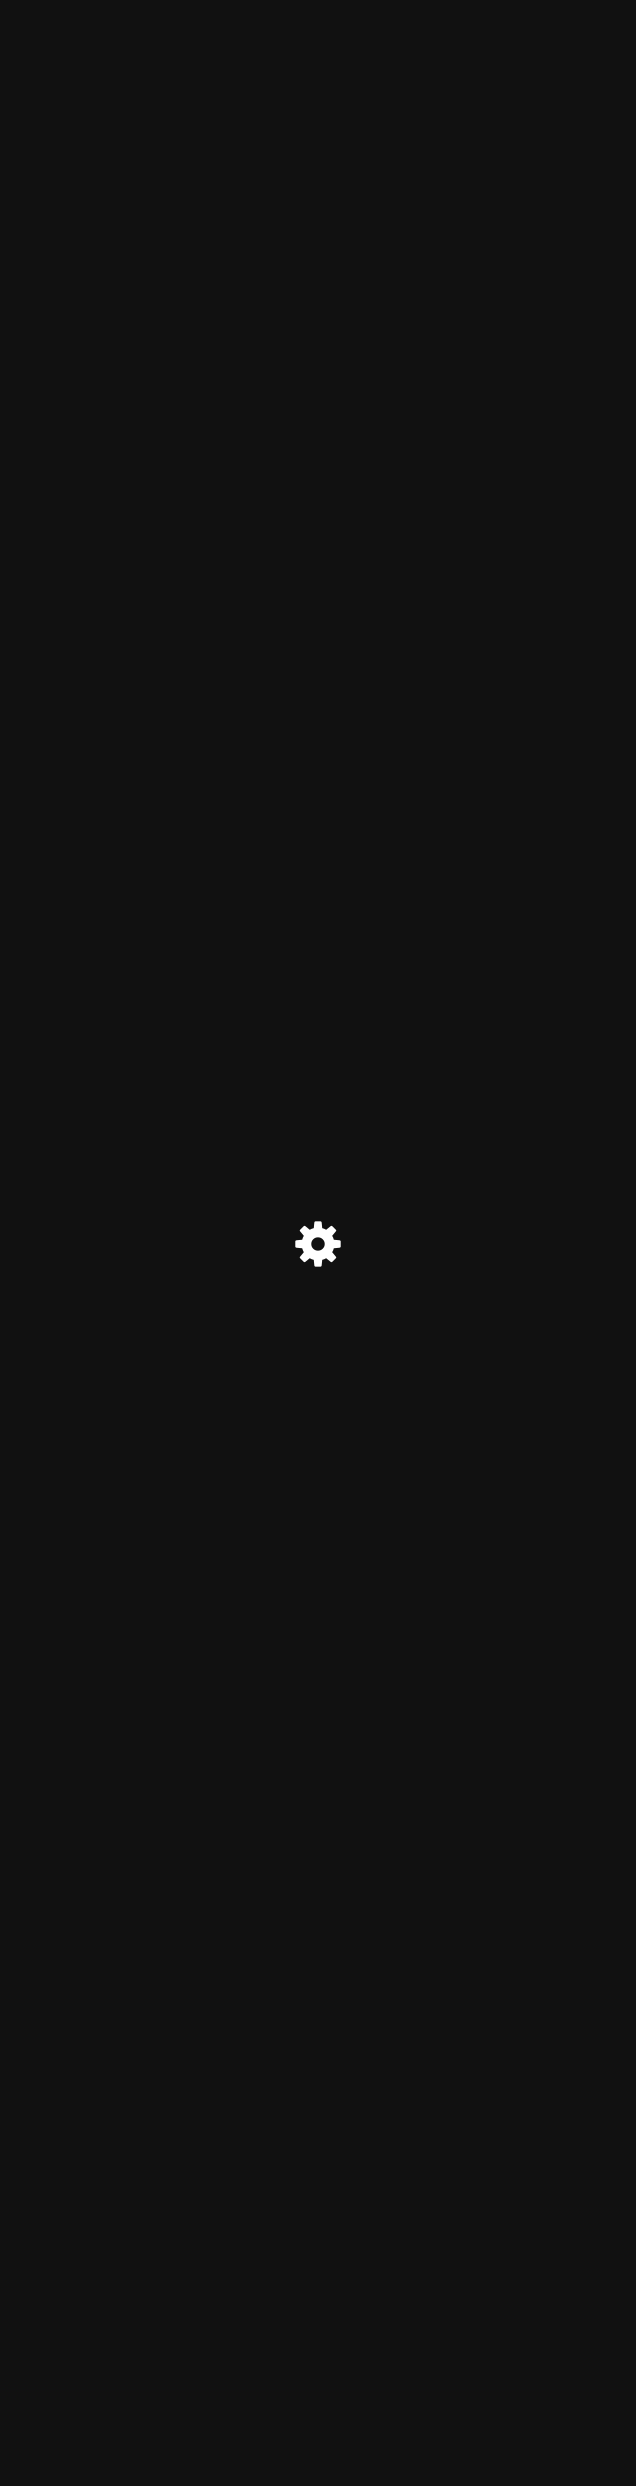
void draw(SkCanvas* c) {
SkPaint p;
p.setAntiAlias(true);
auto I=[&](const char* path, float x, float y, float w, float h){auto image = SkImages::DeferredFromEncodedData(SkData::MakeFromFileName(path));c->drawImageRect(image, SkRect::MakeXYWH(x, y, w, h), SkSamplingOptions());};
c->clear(0xff111111);
I("1.png",295,1221,46,46);
}
